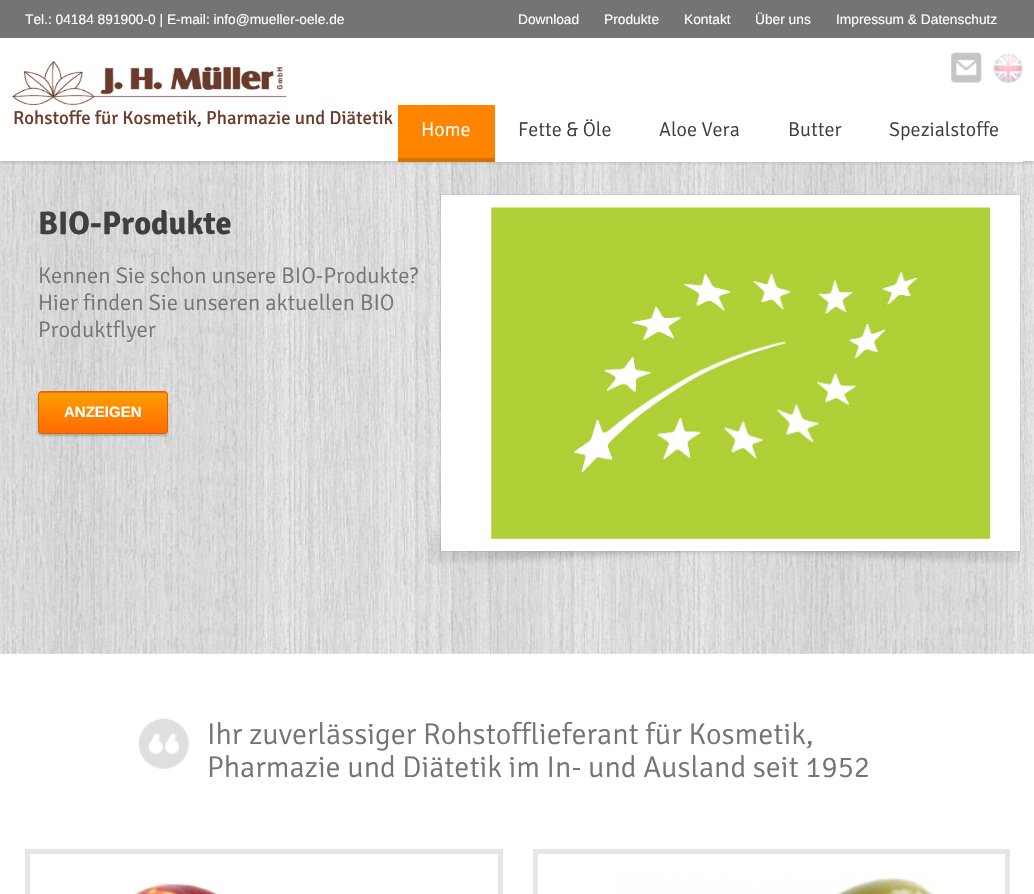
void draw(SkCanvas* c) {
SkPaint p;
p.setAntiAlias(true);
auto F=[&](const char* family, int weight, float size, bool italic = false){SkFontStyle style(weight, SkFontStyle::kNormal_Width,italic ? SkFontStyle::kItalic_Slant : SkFontStyle::kUpright_Slant);SkFont result(fontMgr->matchFamilyStyle(family, style), size);result.setSubpixel(true);return result;};
auto T=[&](const char* s, float x, float y, const SkFont& font){c->drawString(s, x, y, font, p);};
auto R=[&](float x, float y, float w, float h){c->drawRect(SkRect::MakeXYWH(x, y, w, h), p);};
auto I=[&](const char* path, float x, float y, float w, float h){auto image = SkImages::DeferredFromEncodedData(SkData::MakeFromFileName(path));c->drawImageRect(image, SkRect::MakeXYWH(x, y, w, h), SkSamplingOptions());};
auto P=[&](const char* data, bool evenOdd = false){SkPath result = *SkParsePath::FromSVGString(data);if (evenOdd) result.setFillType(SkPathFillType::kEvenOdd);return result;};
c->clear(0xffffffff);
p.setColor(0xfff6f6f6);
R(0,161,1034,493);
I("4.png",0,161,1034,493);
c->save();
c->clipRect(SkRect::MakeXYWH(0,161,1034,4));
p.setColor(0x4d000000);
p.setMaskFilter(SkMaskFilter::MakeBlur(kNormal_SkBlurStyle, 2.5));
c->drawRect(SkRect::MakeXYWH(0,0,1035,161),p);
p.setMaskFilter(nullptr);
c->restore();
p.setColor(0xff747474);
R(0,0,1034,38);
auto f1 = F("Liberation Sans",400,13.75);
p.setColor(0xffffffff);
T("Tel.: 04184 891900-0 | E-mail: info@mueller-oele.de",25,24,f1);
T("Download",518,24,f1);
T("Produkte",604,24,f1);
T("Kontakt",684,24,f1);
T("Über uns",755,24,f1);
T("Impressum & Datenschutz",836,24,f1);
I("1.png",951,52,31,31);
I("2.png",993,53,30,30);
I("3.png",12,61,275,44);
auto f2 = F("Signika",400,18.75);
p.setColor(0xff6b3c2c);
T("Rohstoffe für Kosmetik, Pharmazie und Diätetik",13,124,f2);
p.setColor(0xffff8400);
R(398,105,97,53);
p.setColor(0xffd97000);
R(398,158,97,4);
auto f3 = F("Signika",300,20);
p.setColor(0xffffffff);
T("Home",421,136,f3);
R(495,161,528,1);
p.setColor(0xff3f3f3f);
T("Fette & Öle",518,136,f3);
T("Aloe Vera",659,136,f3);
T("Butter",788,136,f3);
T("Spezialstoffe",889,136,f3);
auto f4 = F("Signika",700,32.5);
T("BIO-Produkte",38,234,f4);
I("5.png",429,531,591,33);
p.setColor(0x33000000);
p.setMaskFilter(SkMaskFilter::MakeBlur(kNormal_SkBlurStyle, 1));
c->drawRect(SkRect::MakeXYWH(441,195,579,356),p);
p.setMaskFilter(nullptr);
p.setColor(0xffffffff);
R(441,195,579,356);
I("6.png",491,207,499,332);
auto f5 = F("Signika",300,22.5);
p.setColor(0xff747474);
T("Kennen Sie schon unsere BIO-Produkte?",38,283,f5);
T("Hier finden Sie unseren aktuellen BIO",38,310,f5);
T("Produktflyer",38,337,f5);
p.setColor(0x33000000);
p.setMaskFilter(SkMaskFilter::MakeBlur(kNormal_SkBlurStyle, 1));
c->drawRoundRect(SkRect::MakeXYWH(38,394,130,42),4,4,p);
p.setMaskFilter(nullptr);
c->save();
c->clipPath(P("M42 391h122c2 0 4 2 4 4v35c0 2-2 4-4 4h-122c-2 0-4-2-4-4v-35c0-2 2-4 4-4z"),true);
{
const SkColor colors[] = {0xffff9e00,0xffff6a00};
const float stops[] = {0,1};
const SkPoint ends[] = {{103,353}, {103,393}};
p.setShader(SkGradientShader::MakeLinear(ends, colors, stops, 2, SkTileMode::kClamp));
p.setAlpha(255);
}
R(38,391,130,2);
{
const SkColor colors[] = {0xffff9e00,0xffff6a00};
const float stops[] = {0,1};
const SkPoint ends[] = {{103,393}, {103,433}};
p.setShader(SkGradientShader::MakeLinear(ends, colors, stops, 2, SkTileMode::kClamp));
p.setAlpha(255);
}
R(38,393,130,40);
c->restore();
p.setStroke(true);
p.setStrokeWidth(1);
p.setShader(nullptr);
p.setColor(0xffde6200);
c->drawRoundRect(SkRect::MakeXYWH(38.5,391.5,129,42),3.5,3.5,p);
auto f6 = F("Liberation Sans",700,15);
p.setStroke(false);
p.setColor(0xffffffff);
T("ANZEIGEN",64,417,f6);
I("7.png",138,718,51,51);
auto f7 = F("Signika",300,30);
p.setColor(0xff747474);
T("Ihr zuverlässiger Rohstofflieferant für Kosmetik,",207,744,f7);
T("Pharmazie und Diätetik im In- und Ausland seit 1952",207,777,f7);
I("8.png",134,883,89,11);
p.setStroke(true);
p.setStrokeWidth(5);
p.setColor(0xffe6e6e6);
c->drawRect(SkRect::MakeXYWH(27.5,851.5,473,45),p);
I("9.png",618,876,316,18);
c->drawRect(SkRect::MakeXYWH(535.5,851.5,472,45),p);
}
